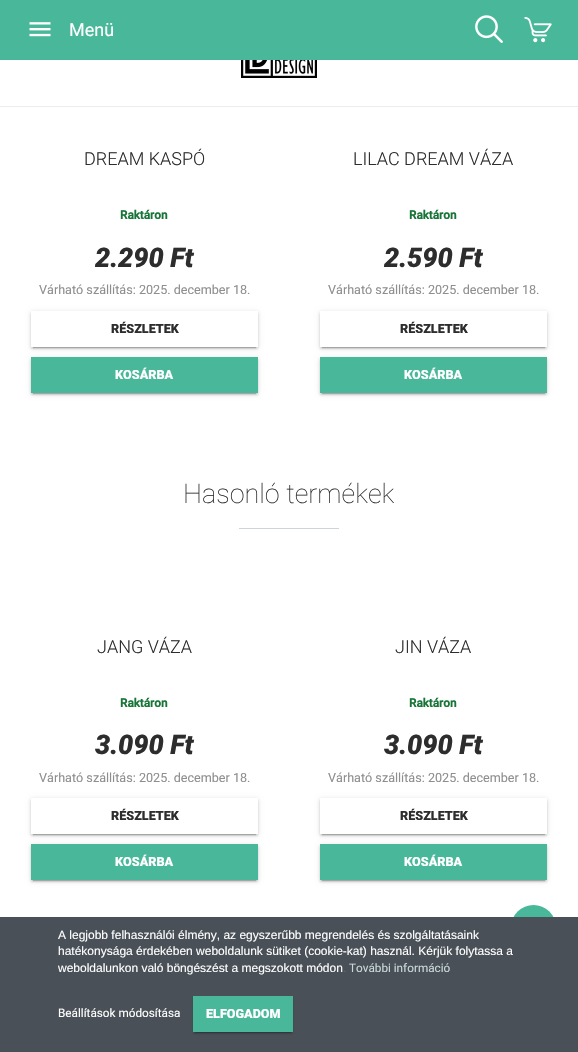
void draw(SkCanvas* c) {
SkPaint p;
p.setAntiAlias(true);
auto F=[&](const char* family, int weight, float size, bool italic = false){SkFontStyle style(weight, SkFontStyle::kNormal_Width,italic ? SkFontStyle::kItalic_Slant : SkFontStyle::kUpright_Slant);SkFont result(fontMgr->matchFamilyStyle(family, style), size);result.setSubpixel(true);return result;};
auto T=[&](const char* s, float x, float y, const SkFont& font){c->drawString(s, x, y, font, p);};
auto R=[&](float x, float y, float w, float h){c->drawRect(SkRect::MakeXYWH(x, y, w, h), p);};
auto I=[&](const char* path, float x, float y, float w, float h){auto image = SkImages::DeferredFromEncodedData(SkData::MakeFromFileName(path));c->drawImageRect(image, SkRect::MakeXYWH(x, y, w, h), SkSamplingOptions());};
auto P=[&](const char* data, bool evenOdd = false){SkPath result = *SkParsePath::FromSVGString(data);if (evenOdd) result.setFillType(SkPathFillType::kEvenOdd);return result;};
c->clear(0xffffffff);
p.setColor(0xff49b89a);
R(0,0,578,60);
I("1.png",29,22,22,15);
auto f1 = F("Roboto",400,18);
p.setColor(0xffffffff);
T("Menü",69,36,f1);
I("2.png",475,15,28,28);
I("3.png",524,17,28,26);
p.setColor(0xffebedef);
R(0,106,578,1);
I("4.png",241,60,76,18);
auto f2 = F("Roboto",300,18);
p.setColor(0xff2d2d2d);
T("DREAM KASPÓ",84,165,f2);
auto f3 = F("Roboto",700,11.75);
p.setColor(0xff177537);
T("Raktáron",120,219,f3);
auto f4 = F("Roboto",900,27,true);
p.setColor(0xff2d2d2d);
T("2.290 Ft",95,267,f4);
auto f5 = F("Roboto",400,12.6);
p.setColor(0xff8e8e8e);
T("Várható szállítás: 2025. december 18.",39,294,f5);
c->save();
c->clipRect(SkRect::MakeXYWH(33,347,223,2));
p.setColor(0x33000000);
p.setMaskFilter(SkMaskFilter::MakeBlur(kNormal_SkBlurStyle, .5));
c->drawRect(SkRect::MakeXYWH(33,316,223,32),p);
p.setMaskFilter(nullptr);
c->restore();
c->save();
c->clipPath(P("M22 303h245v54h-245zm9 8h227v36h-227z",true),true);
p.setColor(0x1f000000);
p.setMaskFilter(SkMaskFilter::MakeBlur(kNormal_SkBlurStyle, 2.5));
c->drawRect(SkRect::MakeXYWH(31,312,227,36),p);
p.setMaskFilter(nullptr);
c->restore();
c->save();
c->clipPath(P("M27 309h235v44h-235zm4 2h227v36h-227z",true),true);
p.setColor(0x24000000);
p.setMaskFilter(SkMaskFilter::MakeBlur(kNormal_SkBlurStyle, 1));
c->drawRect(SkRect::MakeXYWH(31,313,227,36),p);
p.setMaskFilter(nullptr);
c->restore();
auto f6 = F("Roboto",900,12.6);
p.setColor(0xff2d2d2d);
T("RÉSZLETEK",111,333,f6);
p.setColor(0x33000000);
p.setMaskFilter(SkMaskFilter::MakeBlur(kNormal_SkBlurStyle, .5));
c->drawRect(SkRect::MakeXYWH(33,362,223,32),p);
p.setMaskFilter(nullptr);
p.setColor(0x1f000000);
p.setMaskFilter(SkMaskFilter::MakeBlur(kNormal_SkBlurStyle, 2.5));
c->drawRect(SkRect::MakeXYWH(31,358,227,36),p);
p.setMaskFilter(nullptr);
p.setColor(0x24000000);
p.setMaskFilter(SkMaskFilter::MakeBlur(kNormal_SkBlurStyle, 1));
c->drawRect(SkRect::MakeXYWH(31,359,227,36),p);
p.setMaskFilter(nullptr);
p.setColor(0xff49b89a);
R(31,357,227,36);
p.setColor(0xffffffff);
T("KOSÁRBA",115,379,f6);
p.setColor(0xff2d2d2d);
T("LILAC DREAM VÁZA",353,165,f2);
p.setColor(0xff177537);
T("Raktáron",409,219,f3);
p.setColor(0xff2d2d2d);
T("2.590 Ft",384,267,f4);
p.setColor(0xff8e8e8e);
T("Várható szállítás: 2025. december 18.",328,294,f5);
c->save();
c->clipRect(SkRect::MakeXYWH(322,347,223,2));
p.setColor(0x33000000);
p.setMaskFilter(SkMaskFilter::MakeBlur(kNormal_SkBlurStyle, .5));
c->drawRect(SkRect::MakeXYWH(322,316,223,32),p);
p.setMaskFilter(nullptr);
c->restore();
c->save();
c->clipPath(P("M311 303h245v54h-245zm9 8h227v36h-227z",true),true);
p.setColor(0x1f000000);
p.setMaskFilter(SkMaskFilter::MakeBlur(kNormal_SkBlurStyle, 2.5));
c->drawRect(SkRect::MakeXYWH(320,312,227,36),p);
p.setMaskFilter(nullptr);
c->restore();
c->save();
c->clipPath(P("M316 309h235v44h-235zm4 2h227v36h-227z",true),true);
p.setColor(0x24000000);
p.setMaskFilter(SkMaskFilter::MakeBlur(kNormal_SkBlurStyle, 1));
c->drawRect(SkRect::MakeXYWH(320,313,227,36),p);
p.setMaskFilter(nullptr);
c->restore();
p.setColor(0xff2d2d2d);
T("RÉSZLETEK",400,333,f6);
p.setColor(0x33000000);
p.setMaskFilter(SkMaskFilter::MakeBlur(kNormal_SkBlurStyle, .5));
c->drawRect(SkRect::MakeXYWH(322,362,223,32),p);
p.setMaskFilter(nullptr);
p.setColor(0x1f000000);
p.setMaskFilter(SkMaskFilter::MakeBlur(kNormal_SkBlurStyle, 2.5));
c->drawRect(SkRect::MakeXYWH(320,358,227,36),p);
p.setMaskFilter(nullptr);
p.setColor(0x24000000);
p.setMaskFilter(SkMaskFilter::MakeBlur(kNormal_SkBlurStyle, 1));
c->drawRect(SkRect::MakeXYWH(320,359,227,36),p);
p.setMaskFilter(nullptr);
p.setColor(0xff49b89a);
R(320,357,227,36);
p.setColor(0xffffffff);
T("KOSÁRBA",404,379,f6);
auto f7 = F("Roboto",100,27);
p.setColor(0xff2d2d2d);
T("Hasonló termékek",183,503,f7);
p.setColor(0xffced4da);
R(239,528,100,1);
p.setColor(0xff2d2d2d);
T("JANG VÁZA",97,653,f2);
p.setColor(0xff177537);
T("Raktáron",120,707,f3);
p.setColor(0xff2d2d2d);
T("3.090 Ft",95,754,f4);
p.setColor(0xff8e8e8e);
T("Várható szállítás: 2025. december 18.",39,782,f5);
c->save();
c->clipRect(SkRect::MakeXYWH(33,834,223,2));
p.setColor(0x33000000);
p.setMaskFilter(SkMaskFilter::MakeBlur(kNormal_SkBlurStyle, .5));
c->drawRect(SkRect::MakeXYWH(33,803,223,32),p);
p.setMaskFilter(nullptr);
c->restore();
c->save();
c->clipPath(P("M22 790h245v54h-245zm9 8h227v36h-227z",true),true);
p.setColor(0x1f000000);
p.setMaskFilter(SkMaskFilter::MakeBlur(kNormal_SkBlurStyle, 2.5));
c->drawRect(SkRect::MakeXYWH(31,799,227,36),p);
p.setMaskFilter(nullptr);
c->restore();
c->save();
c->clipPath(P("M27 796h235v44h-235zm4 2h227v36h-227z",true),true);
p.setColor(0x24000000);
p.setMaskFilter(SkMaskFilter::MakeBlur(kNormal_SkBlurStyle, 1));
c->drawRect(SkRect::MakeXYWH(31,800,227,36),p);
p.setMaskFilter(nullptr);
c->restore();
p.setColor(0xff2d2d2d);
T("RÉSZLETEK",111,820,f6);
p.setColor(0x33000000);
p.setMaskFilter(SkMaskFilter::MakeBlur(kNormal_SkBlurStyle, .5));
c->drawRect(SkRect::MakeXYWH(33,849,223,32),p);
p.setMaskFilter(nullptr);
p.setColor(0x1f000000);
p.setMaskFilter(SkMaskFilter::MakeBlur(kNormal_SkBlurStyle, 2.5));
c->drawRect(SkRect::MakeXYWH(31,845,227,36),p);
p.setMaskFilter(nullptr);
p.setColor(0x24000000);
p.setMaskFilter(SkMaskFilter::MakeBlur(kNormal_SkBlurStyle, 1));
c->drawRect(SkRect::MakeXYWH(31,846,227,36),p);
p.setMaskFilter(nullptr);
p.setColor(0xff49b89a);
R(31,844,227,36);
p.setColor(0xffffffff);
T("KOSÁRBA",115,866,f6);
p.setColor(0xff2d2d2d);
T("JIN VÁZA",395,653,f2);
p.setColor(0xff177537);
T("Raktáron",409,707,f3);
p.setColor(0xff2d2d2d);
T("3.090 Ft",384,754,f4);
p.setColor(0xff8e8e8e);
T("Várható szállítás: 2025. december 18.",328,782,f5);
c->save();
c->clipRect(SkRect::MakeXYWH(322,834,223,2));
p.setColor(0x33000000);
p.setMaskFilter(SkMaskFilter::MakeBlur(kNormal_SkBlurStyle, .5));
c->drawRect(SkRect::MakeXYWH(322,803,223,32),p);
p.setMaskFilter(nullptr);
c->restore();
c->save();
c->clipPath(P("M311 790h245v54h-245zm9 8h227v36h-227z",true),true);
p.setColor(0x1f000000);
p.setMaskFilter(SkMaskFilter::MakeBlur(kNormal_SkBlurStyle, 2.5));
c->drawRect(SkRect::MakeXYWH(320,799,227,36),p);
p.setMaskFilter(nullptr);
c->restore();
c->save();
c->clipPath(P("M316 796h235v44h-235zm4 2h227v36h-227z",true),true);
p.setColor(0x24000000);
p.setMaskFilter(SkMaskFilter::MakeBlur(kNormal_SkBlurStyle, 1));
c->drawRect(SkRect::MakeXYWH(320,800,227,36),p);
p.setMaskFilter(nullptr);
c->restore();
p.setColor(0xff2d2d2d);
T("RÉSZLETEK",400,820,f6);
p.setColor(0x33000000);
p.setMaskFilter(SkMaskFilter::MakeBlur(kNormal_SkBlurStyle, .5));
c->drawRect(SkRect::MakeXYWH(322,849,223,32),p);
p.setMaskFilter(nullptr);
p.setColor(0x1f000000);
p.setMaskFilter(SkMaskFilter::MakeBlur(kNormal_SkBlurStyle, 2.5));
c->drawRect(SkRect::MakeXYWH(320,845,227,36),p);
p.setMaskFilter(nullptr);
p.setColor(0x24000000);
p.setMaskFilter(SkMaskFilter::MakeBlur(kNormal_SkBlurStyle, 1));
c->drawRect(SkRect::MakeXYWH(320,846,227,36),p);
p.setMaskFilter(nullptr);
p.setColor(0xff49b89a);
R(320,844,227,36);
p.setColor(0xffffffff);
T("KOSÁRBA",404,866,f6);
p.setColor(0xff49b89a);
c->drawCircle(533.5,927.5,22.5,p);
p.setColor(0xff495057);
R(0,917,578,135);
auto f8 = F("Liberation Sans",400,12);
p.setColor(0xffffffff);
T("A legjobb felhasználói élmény, az egyszerűbb megrendelés és szolgáltatásaink",58,939,f8);
T("hatékonysága érdekében weboldalunk sütiket (cookie-kat) használ. Kérjük folytassa a",58,955,f8);
T("weboldalunkon való böngészést a megszokott módon",58,972,f8);
p.setColor(0xff666666);
T(".",343,972,f8);
auto f9 = F("Roboto",400,11.75);
p.setColor(0xffc9d8d9);
T("További információ",349,972,f9);
p.setColor(0xffffffff);
T("Beállítások módosítása",58,1017,f9);
p.setColor(0x33000000);
p.setMaskFilter(SkMaskFilter::MakeBlur(kNormal_SkBlurStyle, .5));
c->drawRect(SkRect::MakeXYWH(195,1001,96,32),p);
p.setMaskFilter(nullptr);
p.setColor(0x24000000);
p.setMaskFilter(SkMaskFilter::MakeBlur(kNormal_SkBlurStyle, 1));
c->drawRect(SkRect::MakeXYWH(193,998,100,36),p);
p.setMaskFilter(nullptr);
p.setColor(0xff49b89a);
R(193,996,100,36);
p.setColor(0xffffffff);
T("ELFOGADOM",206,1018,f6);
}
